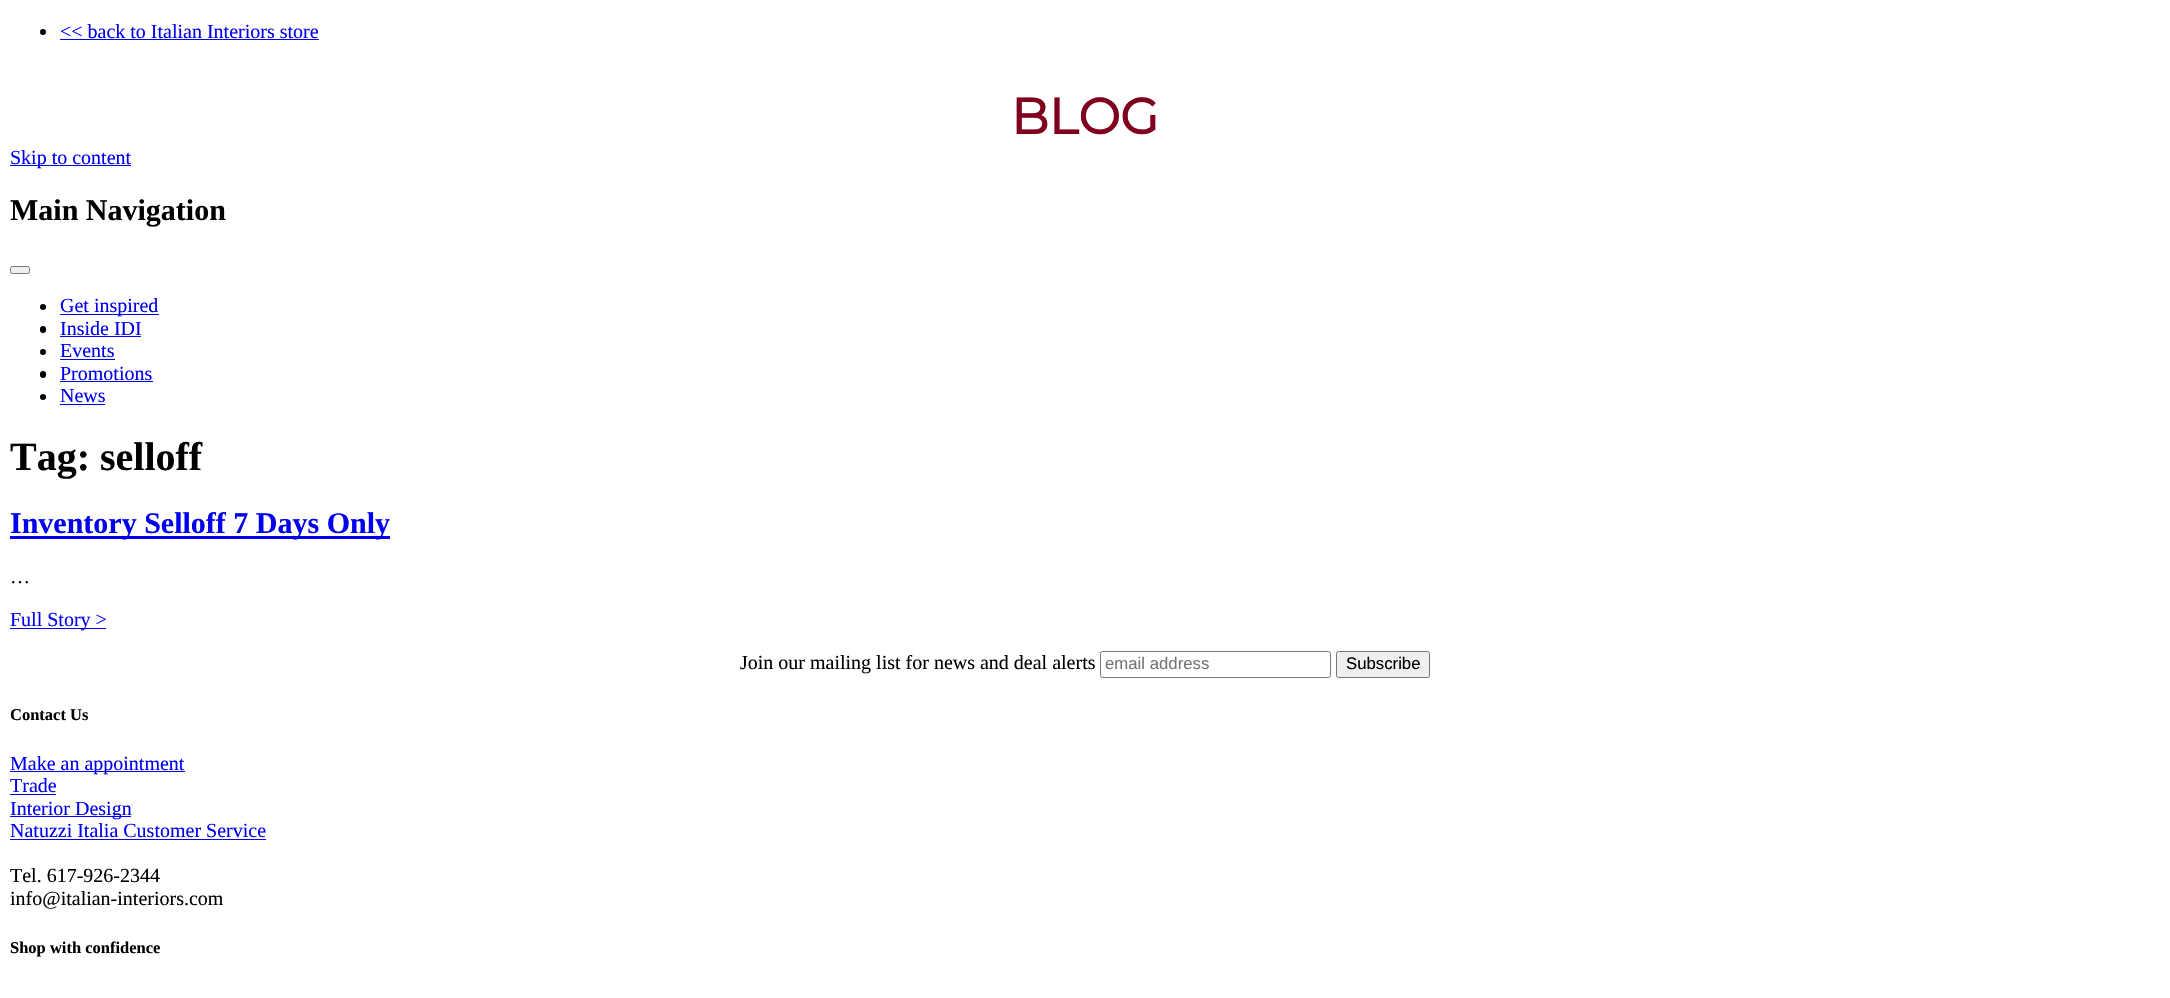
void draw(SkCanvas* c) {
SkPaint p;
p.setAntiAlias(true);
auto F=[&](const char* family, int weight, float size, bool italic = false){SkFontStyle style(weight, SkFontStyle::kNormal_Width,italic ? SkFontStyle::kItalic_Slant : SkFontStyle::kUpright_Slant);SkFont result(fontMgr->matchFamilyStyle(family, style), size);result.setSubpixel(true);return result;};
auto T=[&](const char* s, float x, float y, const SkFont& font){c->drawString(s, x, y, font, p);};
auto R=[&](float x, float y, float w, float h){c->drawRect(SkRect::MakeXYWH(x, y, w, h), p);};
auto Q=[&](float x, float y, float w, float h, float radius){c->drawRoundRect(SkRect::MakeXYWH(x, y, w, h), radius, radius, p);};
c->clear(0xffffffff);
p.setColor(0xff000000);
c->drawCircle(43,32,3,p);
auto f1 = F("Liberation Serif",400,20);
p.setColor(0xff0000ee);
T("<< back to Italian Interiors store",60,38,f1);
R(60,39,259,1);
auto f2 = F("Montserrat",700,50);
p.setColor(0xff7f011e);
T("BLOG",1011,134,f2);
p.setColor(0xff0000ee);
R(10,165,121,1);
T("Skip to content",10,164,f1);
auto f3 = F("Liberation Serif",700,30);
p.setColor(0xff000000);
T("Main Navigation",10,220,f3);
p.setColor(0xffefefef);
c->drawRoundRect(SkRect::MakeXYWH(10.5,266.5,19,7),2,2,p);
p.setStroke(true);
p.setStrokeWidth(1);
p.setColor(0xff767676);
c->drawRoundRect(SkRect::MakeXYWH(10.5,266.5,19,7),2,2,p);
p.setStroke(false);
p.setColor(0xff000000);
c->drawCircle(43,307,3,p);
p.setColor(0xff0000ee);
R(60,314,99,1);
T("Get inspired",60,312,f1);
p.setColor(0xff000000);
Q(40,326,6,7,3);
p.setColor(0xff0000ee);
T("Inside IDI",60,335,f1);
R(60,336,81,1);
p.setColor(0xff000000);
c->drawCircle(43,352,3,p);
p.setColor(0xff0000ee);
T("Events",60,357,f1);
R(60,359,55,1);
p.setColor(0xff000000);
Q(40,371,6,7,3);
p.setColor(0xff0000ee);
T("Promotions",60,380,f1);
R(60,381,93,1);
p.setColor(0xff000000);
c->drawCircle(43,397,3,p);
p.setColor(0xff0000ee);
T("News",60,402,f1);
R(60,404,45,1);
auto f4 = F("Liberation Serif",700,40);
p.setColor(0xff000000);
T("Tag: selloff",10,470,f4);
p.setColor(0xff0000ee);
R(10,536,380,3);
T("Inventory Selloff 7 Days Only",10,533,f3);
p.setColor(0xff000000);
T("…",10,583,f1);
p.setColor(0xff0000ee);
R(10,628,96,1);
T("Full Story >",10,626,f1);
p.setColor(0xff000000);
T("Join our mailing list for news and deal alerts",740,669,f1);
p.setStroke(true);
p.setColor(0xff767676);
c->drawRoundRect(SkRect::MakeXYWH(1100.5,651.5,230,26),2,2,p);
auto f5 = F("Liberation Sans",400,16.75);
p.setStroke(false);
p.setColor(0xff757575);
T("email address",1105,669,f5);
p.setColor(0xffefefef);
c->drawRoundRect(SkRect::MakeXYWH(1336.5,651.5,93,26),2,2,p);
p.setStroke(true);
p.setColor(0xff767676);
c->drawRoundRect(SkRect::MakeXYWH(1336.5,651.5,93,26),2,2,p);
p.setStroke(false);
p.setColor(0xff000000);
T("Subscribe",1346,669,f5);
auto f6 = F("Liberation Serif",700,16.5);
T("Contact Us",10,720,f6);
p.setColor(0xff0000ee);
R(10,771,175,1);
T("Make an appointment",10,770,f1);
T("Trade",10,792,f1);
R(10,794,46,1);
R(10,816,121,1);
T("Interior Design",10,815,f1);
T("Natuzzi Italia Customer Service",10,837,f1);
R(10,839,256,1);
p.setColor(0xff000000);
T("Tel. 617-926-2344",10,882,f1);
T("info@italian-interiors.com",10,905,f1);
T("Shop with confidence",10,953,f6);
}
